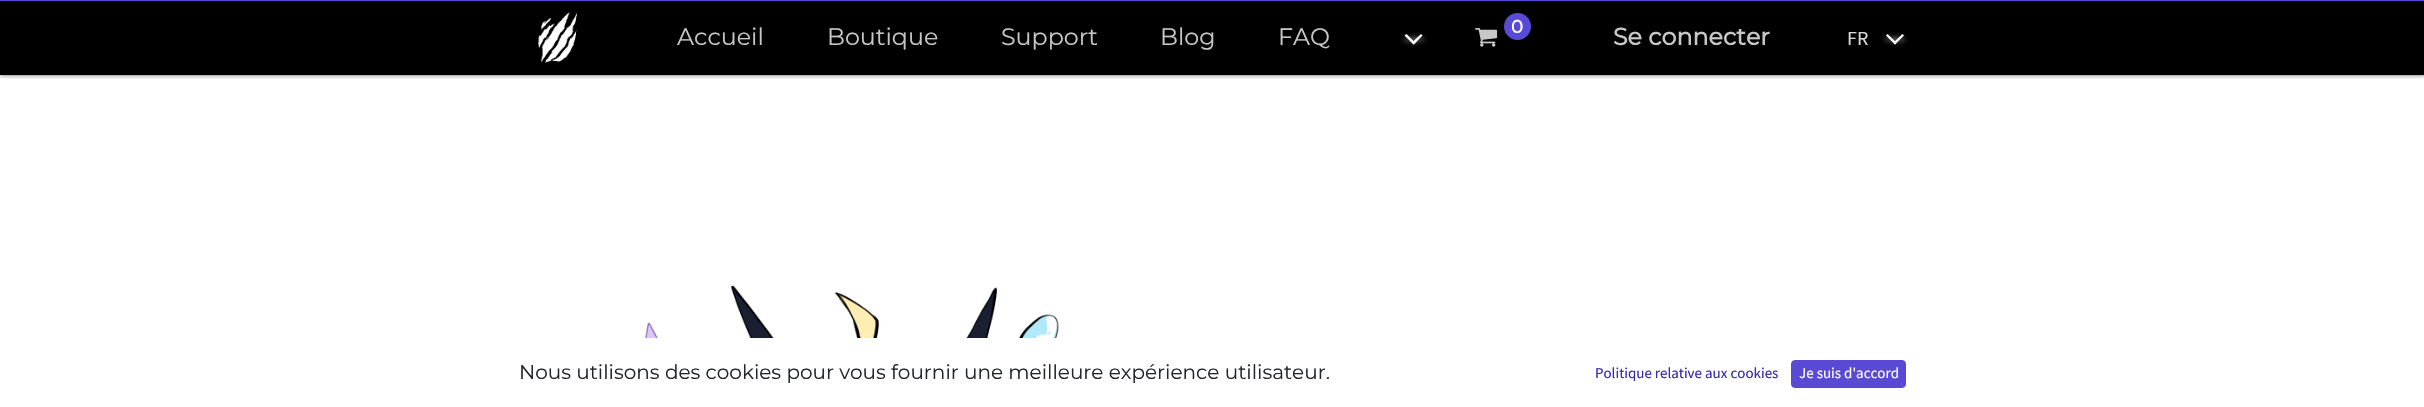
void draw(SkCanvas* c) {
SkPaint p;
p.setAntiAlias(true);
auto F=[&](const char* family, int weight, float size, bool italic = false){SkFontStyle style(weight, SkFontStyle::kNormal_Width,italic ? SkFontStyle::kItalic_Slant : SkFontStyle::kUpright_Slant);SkFont result(fontMgr->matchFamilyStyle(family, style), size);result.setSubpixel(true);return result;};
auto T=[&](const char* s, float x, float y, const SkFont& font){c->drawString(s, x, y, font, p);};
auto R=[&](float x, float y, float w, float h){c->drawRect(SkRect::MakeXYWH(x, y, w, h), p);};
auto I=[&](const char* path, float x, float y, float w, float h){auto image = SkImages::DeferredFromEncodedData(SkData::MakeFromFileName(path));c->drawImageRect(image, SkRect::MakeXYWH(x, y, w, h), SkSamplingOptions());};
auto P=[&](const char* data, bool evenOdd = false){SkPath result = *SkParsePath::FromSVGString(data);if (evenOdd) result.setFillType(SkPathFillType::kEvenOdd);return result;};
c->clear(0xffffffff);
p.setColor(0xff757575);
p.setMaskFilter(SkMaskFilter::MakeBlur(kNormal_SkBlurStyle, 2));
c->drawRect(SkRect::MakeXYWH(0,0,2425,75),p);
p.setMaskFilter(nullptr);
p.setColor(0xff000000);
R(0,1,2424,74);
c->save();
c->clipRect(SkRect::MakeXYWH(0,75,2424,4));
p.setColor(0x12000000);
p.setMaskFilter(SkMaskFilter::MakeBlur(kNormal_SkBlurStyle, 2.5));
c->drawRect(SkRect::MakeXYWH(0,3,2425,75),p);
p.setMaskFilter(nullptr);
c->restore();
p.setColor(0xff584ad5);
R(0,0,2424,1);
I("1.png",538,12,39,51);
auto f1 = F("Montserrat",400,23.75);
p.setColor(0xffc7c7c7);
T("Accueil",677,45,f1);
T("Boutique",827,45,f1);
T("Support",1001,45,f1);
T("Blog",1160,45,f1);
T("FAQ",1278,45,f1);
p.setColor(0x75d5d5d5);
p.setMaskFilter(SkMaskFilter::MakeBlur(kNormal_SkBlurStyle, 2.5));
c->drawRect(SkRect::MakeXYWH(1404,38,12,3),p);
p.setMaskFilter(nullptr);
p.setColor(0xffffffff);
c->drawPath(P("M1406.5 34l8.5 8.5l-1.5 2l-9-9z"),p);
p.setColor(0x75d5d5d5);
p.setMaskFilter(SkMaskFilter::MakeBlur(kNormal_SkBlurStyle, 2.5));
c->drawRect(SkRect::MakeXYWH(1411,38,13,3),p);
p.setMaskFilter(nullptr);
p.setColor(0xffffffff);
c->drawPath(P("M1412 42.5l9-8.5l1.5 1.5l-8.5 9z"),p);
I("2.png",1475,28,23,19);
p.setColor(0xff584ad5);
c->drawCircle(1517.5,26.5,13.5,p);
auto f2 = F("Montserrat",700,18);
p.setColor(0xffffffff);
T("0",1511,33,f2);
auto f3 = F("Montserrat",700,23.75);
p.setColor(0xffc7c7c7);
T("Se connecter",1613,45,f3);
p.setColor(0x75d5d5d5);
p.setMaskFilter(SkMaskFilter::MakeBlur(kNormal_SkBlurStyle, 2.5));
c->drawRect(SkRect::MakeXYWH(1885,38,13,3),p);
p.setMaskFilter(nullptr);
p.setColor(0xffffffff);
c->drawPath(P("M1887.5 34l9 8.5l-1.5 2l-9-9z"),p);
auto f4 = F("Source Sans Pro",400,20);
p.setColor(0xffd7d7d7);
T("FR",1847,45,f4);
p.setColor(0x75d5d5d5);
p.setMaskFilter(SkMaskFilter::MakeBlur(kNormal_SkBlurStyle, 2.5));
c->drawRect(SkRect::MakeXYWH(1893,38,12,3),p);
p.setMaskFilter(nullptr);
p.setColor(0xffffffff);
c->drawPath(P("M1893.5 42.5l9-8.5l1.5 1.5l-9 9z"),p);
I("3.png",644,285,415,53);
auto f5 = F("Montserrat",400,20);
p.setColor(0xff212529);
T("Nous utilisons des cookies pour vous fournir une meilleure expérience utilisateur.",519,379,f5);
auto f6 = F("Source Sans Pro",400,15);
p.setColor(0xff3528ab);
T("Politique relative aux cookies",1595,378,f6);
p.setColor(0xff584ad5);
c->drawRoundRect(SkRect::MakeXYWH(1791.5,360.5,114,27),3.5,3.5,p);
p.setStroke(true);
p.setStrokeWidth(1);
c->drawRoundRect(SkRect::MakeXYWH(1791.5,360.5,114,27),3.5,3.5,p);
p.setStroke(false);
p.setColor(0xffffffff);
T("Je suis d'accord",1799,378,f6);
}
